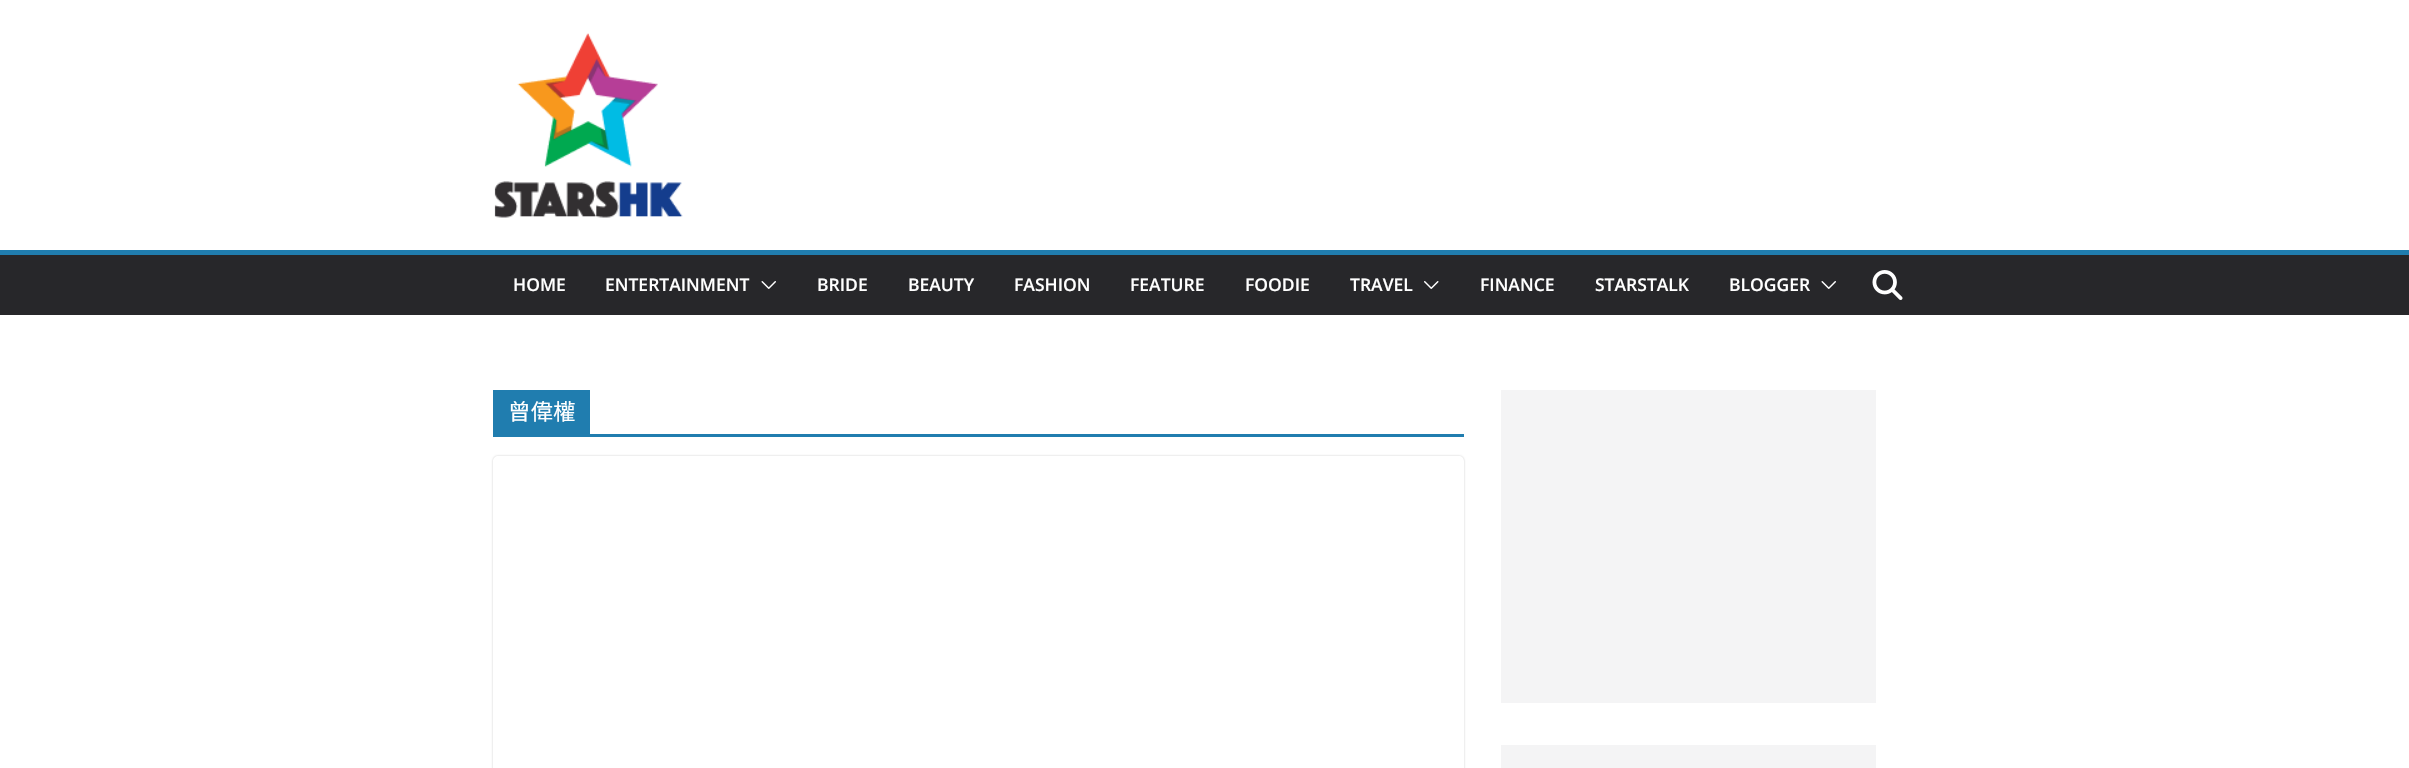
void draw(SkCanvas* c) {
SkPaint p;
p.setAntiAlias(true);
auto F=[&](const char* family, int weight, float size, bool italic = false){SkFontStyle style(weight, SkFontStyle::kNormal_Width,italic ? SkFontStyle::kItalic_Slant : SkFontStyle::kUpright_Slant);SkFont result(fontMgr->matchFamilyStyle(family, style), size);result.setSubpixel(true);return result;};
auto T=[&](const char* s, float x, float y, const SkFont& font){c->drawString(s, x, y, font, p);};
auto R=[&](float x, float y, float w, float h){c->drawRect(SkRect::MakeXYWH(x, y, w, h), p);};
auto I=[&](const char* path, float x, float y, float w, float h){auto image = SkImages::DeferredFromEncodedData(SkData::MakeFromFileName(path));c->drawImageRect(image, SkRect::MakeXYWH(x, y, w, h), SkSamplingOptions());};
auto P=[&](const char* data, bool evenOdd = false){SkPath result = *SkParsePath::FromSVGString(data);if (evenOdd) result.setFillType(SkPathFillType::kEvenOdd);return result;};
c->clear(0xffffffff);
I("1.png",494,33,189,185);
p.setColor(0xff27272a);
R(0,255,2409,60);
p.setColor(0xff207daf);
R(0,250,2409,5);
auto f1 = F("Open Sans",600,17.5);
p.setColor(0xffffffff);
T("HOME",513,291,f1);
T("ENTERTAINMENT",605,291,f1);
I("2.png",761,281,15,8);
T("BRIDE",817,291,f1);
T("BEAUTY",908,291,f1);
T("FASHION",1014,291,f1);
T("FEATURE",1130,291,f1);
T("FOODIE",1245,291,f1);
T("TRAVEL",1350,291,f1);
I("3.png",1424,281,15,8);
T("FINANCE",1480,291,f1);
T("STARSTALK",1595,291,f1);
T("BLOGGER",1729,291,f1);
I("2.png",1821,281,15,8);
I("4.png",1872,270,31,30);
p.setColor(0xff207daf);
R(493,434,971,3);
R(493,390,97,44);
auto f2 = F("Noto Sans CJK TC",400,22.5);
p.setColor(0xffffffff);
T("曾偉權",508,420,f2);
c->save();
c->clipPath(P("M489 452h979v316h-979zm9 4h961c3 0 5 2 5 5v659c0 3-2 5-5 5h-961c-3 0-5-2-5-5v-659c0-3 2-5 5-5z",true),true);
p.setColor(0x3d000000);
p.setMaskFilter(SkMaskFilter::MakeBlur(kNormal_SkBlurStyle, 1));
c->drawRoundRect(SkRect::MakeXYWH(493,456,971,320),5,5,p);
p.setMaskFilter(nullptr);
c->restore();
p.setColor(0xfff4f4f5);
R(1501,390,375,313);
R(1501,745,375,23);
}
